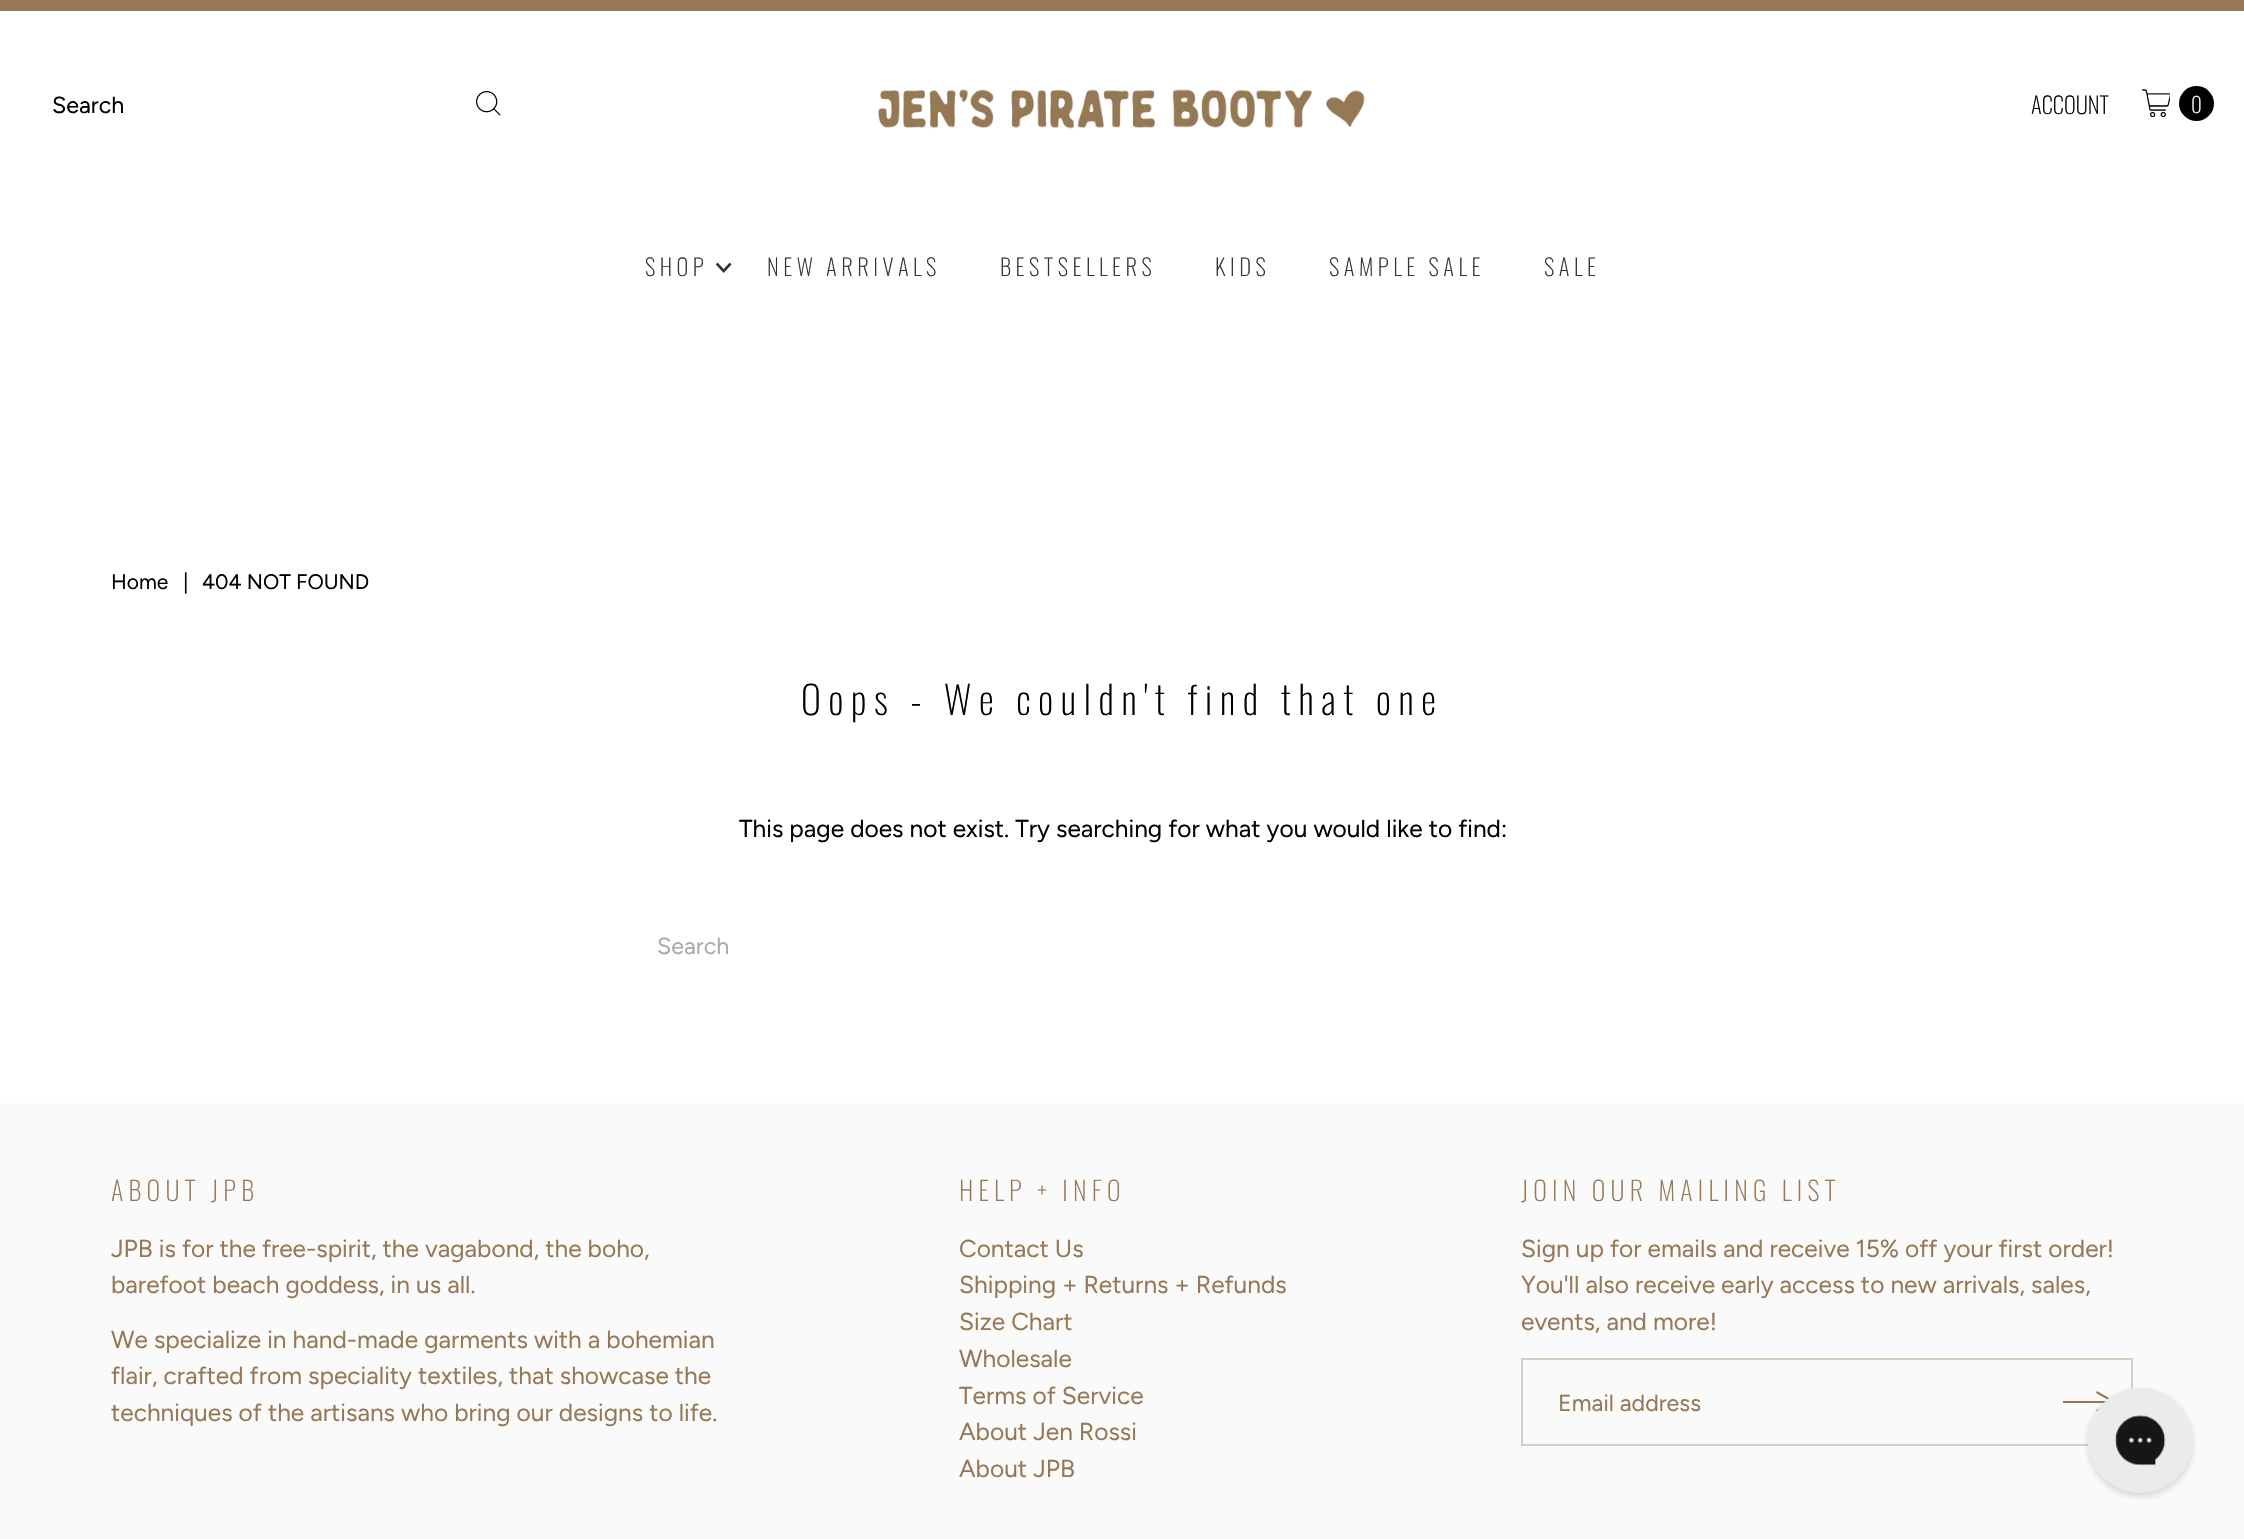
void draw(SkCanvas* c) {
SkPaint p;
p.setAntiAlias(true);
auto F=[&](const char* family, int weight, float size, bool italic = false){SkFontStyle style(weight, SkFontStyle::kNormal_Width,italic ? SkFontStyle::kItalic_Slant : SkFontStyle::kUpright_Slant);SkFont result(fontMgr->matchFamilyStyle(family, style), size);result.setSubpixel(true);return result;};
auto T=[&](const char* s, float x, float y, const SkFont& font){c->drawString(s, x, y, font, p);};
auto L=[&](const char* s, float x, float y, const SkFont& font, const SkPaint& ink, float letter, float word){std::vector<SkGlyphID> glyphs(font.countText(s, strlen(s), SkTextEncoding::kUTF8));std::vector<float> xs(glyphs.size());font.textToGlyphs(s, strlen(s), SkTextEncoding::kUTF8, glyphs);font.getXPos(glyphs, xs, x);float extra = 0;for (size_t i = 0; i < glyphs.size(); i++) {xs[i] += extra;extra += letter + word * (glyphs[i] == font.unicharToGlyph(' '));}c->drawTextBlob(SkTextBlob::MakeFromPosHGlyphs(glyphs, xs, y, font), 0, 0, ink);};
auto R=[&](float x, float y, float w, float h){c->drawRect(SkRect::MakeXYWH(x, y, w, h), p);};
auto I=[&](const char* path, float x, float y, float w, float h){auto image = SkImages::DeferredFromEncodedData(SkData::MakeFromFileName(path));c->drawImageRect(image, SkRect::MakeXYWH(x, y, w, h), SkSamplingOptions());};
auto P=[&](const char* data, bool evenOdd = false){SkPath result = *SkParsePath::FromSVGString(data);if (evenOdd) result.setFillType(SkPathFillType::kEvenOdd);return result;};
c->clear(0xffffffff);
p.setColor(0xff967855);
R(0,0,2244,11);
auto f1 = F("Figtree",400,23.25);
p.setColor(0xff000000);
T("Search",52,113,f1);
I("1.png",476,91,25,25);
I("2.png",878,89,487,40);
auto f2 = F("Oswald",200,22.75);
T("ACCOUNT",2031,114,f2);
I("3.png",2142,89,28,28);
c->drawCircle(2196.5,103.5,17.5,p);
auto f3 = F("Oswald",200,21);
p.setColor(0xffffffff);
T("0",2191,113,f3);
p.setColor(0xff333333);
L("SHOP",645,276,f2,p,4.5,0);
I("4.png",716,263,16,10);
L("NEW ARRIVALS",767,276,f2,p,4.5,0);
L("BESTSELLERS",1000,276,f2,p,4.5,0);
L("KIDS",1215,276,f2,p,4.5,0);
L("SAMPLE SALE",1329,276,f2,p,4.5,0);
L("SALE",1544,276,f2,p,4.5,0);
auto f4 = F("Figtree",400,21);
p.setColor(0xff000000);
T("Home",111,589,f4);
T("|",183,589,f4);
T("404 NOT FOUND",202,589,f4);
auto f5 = F("Oswald",200,38.5);
L("Oops - We couldn't find that one",801,715,f5,p,7.7,0);
auto f6 = F("Figtree",400,24.5);
T("This page does not exist. Try searching for what you would like to find:",739,837,f6);
p.setColor(0xffaaaaaa);
T("Search",657,954,f1);
p.setColor(0xfffafafa);
R(0,1103,2244,436);
auto f7 = F("Oswald",200,26.25);
p.setColor(0xff967855);
L("ABOUT JPB",111,1201,f7,p,5.25,0);
T("JPB is for the free-spirit, the vagabond, the boho,",111,1257,f6);
T("barefoot beach goddess, in us all.",111,1293,f6);
T("We specialize in hand-made garments with a bohemian",111,1348,f6);
T("flair, crafted from speciality textiles, that showcase the",111,1384,f6);
T("techniques of the artisans who bring our designs to life.",111,1421,f6);
L("HELP + INFO",959,1201,f7,p,5.25,0);
T("Contact Us",959,1257,f6);
T("Shipping + Returns + Refunds",959,1293,f6);
T("Size Chart",959,1330,f6);
T("Wholesale",959,1367,f6);
T("Terms of Service",959,1404,f6);
T("About Jen Rossi",959,1440,f6);
T("About JPB",959,1477,f6);
L("JOIN OUR MAILING LIST",1521,1201,f7,p,5.25,0);
T("Sign up for emails and receive 15% off your first order!",1521,1257,f6);
T("You'll also receive early access to new arrivals, sales,",1521,1293,f6);
T("events, and more!",1521,1330,f6);
p.setStroke(true);
p.setStrokeWidth(2);
p.setColor(0xffd7cdc0);
c->drawRect(SkRect::MakeXYWH(1522,1359,610,86),p);
p.setStroke(false);
p.setColor(0xff967855);
T("Email address",1558,1411,f1);
c->drawPath(P("M2097 1391l19 11l-19 10l-1-2l14-7h-47v-2h47l-14-8z"),p);
I("5.png",2084,1387,112,113);
}
